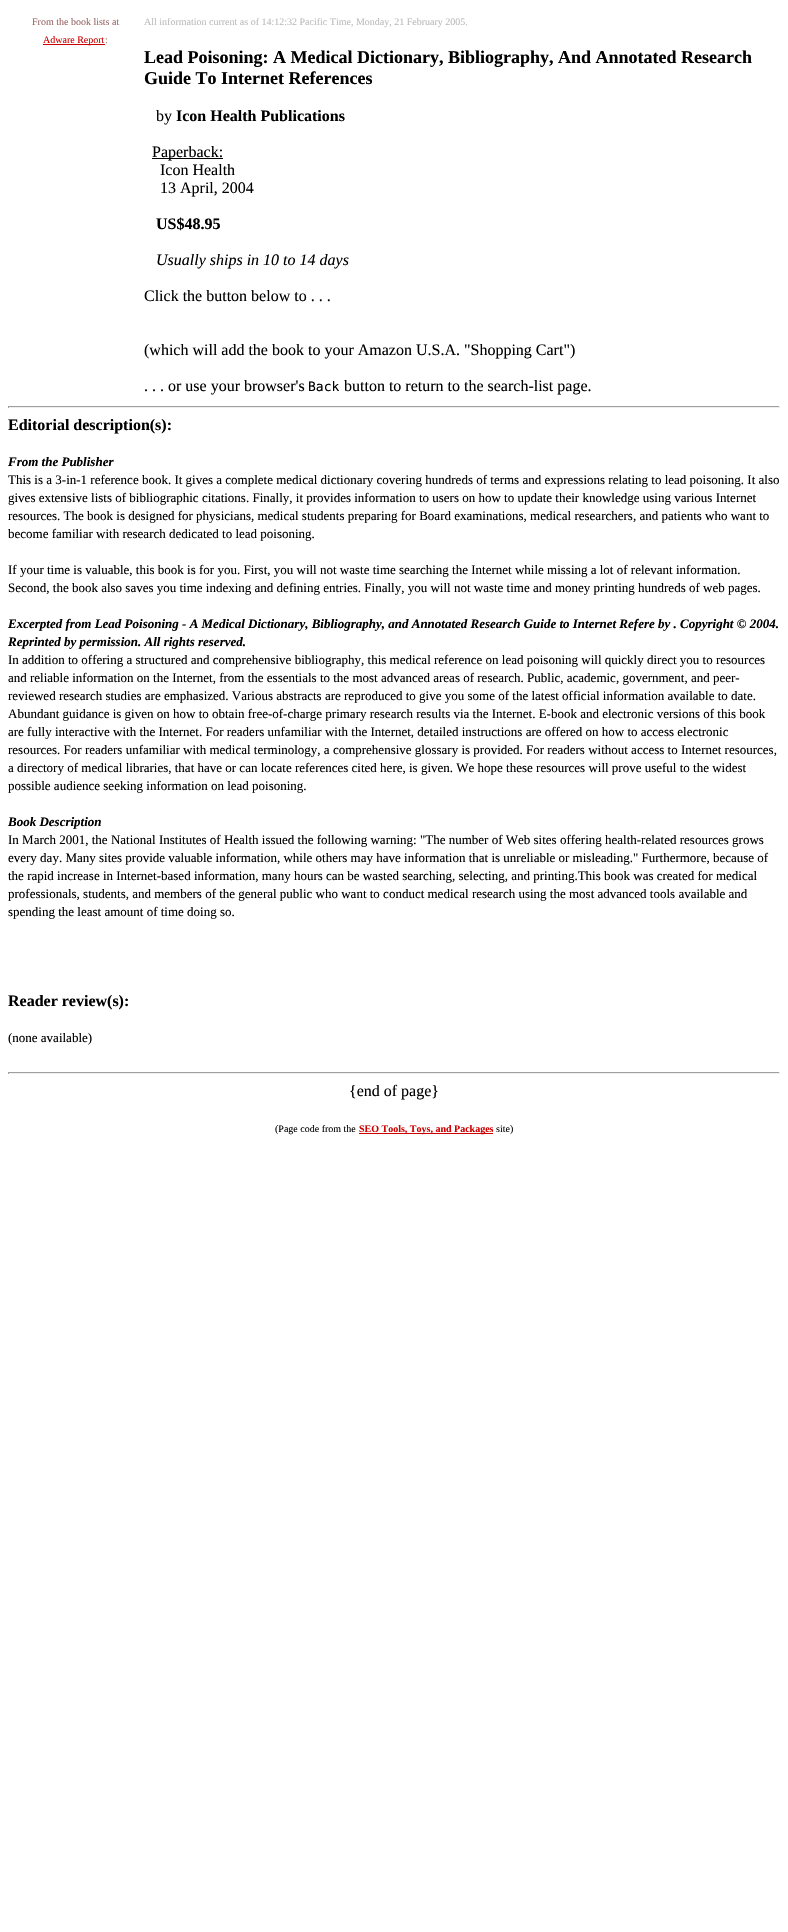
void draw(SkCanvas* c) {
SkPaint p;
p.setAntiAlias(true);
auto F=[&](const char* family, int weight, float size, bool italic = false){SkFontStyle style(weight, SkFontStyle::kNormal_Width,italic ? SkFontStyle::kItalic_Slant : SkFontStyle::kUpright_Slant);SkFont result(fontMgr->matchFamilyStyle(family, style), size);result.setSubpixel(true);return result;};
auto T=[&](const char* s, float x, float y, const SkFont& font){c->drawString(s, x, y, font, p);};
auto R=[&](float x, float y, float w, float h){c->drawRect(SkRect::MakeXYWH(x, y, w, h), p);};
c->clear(0xffffffff);
auto f1 = F("Liberation Serif",400,10);
p.setColor(0xff996666);
T("From the book lists at",32,25,f1);
p.setColor(0xffcc0000);
R(43,44,62,1);
T("Adware Report",43,43,f1);
p.setColor(0xff996666);
T(":",105,43,f1);
p.setColor(0xffbbbbbb);
T("All information current as of 14:12:32 Pacific Time, Monday, 21 February 2005.",144,25,f1);
auto f2 = F("Liberation Serif",700,18);
p.setColor(0xff000000);
T("Lead Poisoning: A Medical Dictionary, Bibliography, And Annotated Research",144,63,f2);
T("Guide To Internet References",144,84,f2);
auto f3 = F("Liberation Serif",400,16);
T("by",156,121,f3);
auto f4 = F("Liberation Serif",700,16);
T("Icon Health Publications",176,121,f4);
R(152,158,71,1);
T("Paperback:",152,157,f3);
T("Icon Health",160,175,f3);
T("13 April, 2004",160,193,f3);
T("US$48.95",156,229,f4);
auto f5 = F("Liberation Serif",400,16,true);
T("Usually ships in 10 to 14 days",156,265,f5);
T("Click the button below to . . .",144,301,f3);
T("(which will add the book to your Amazon U.S.A. \"Shopping Cart\")",144,355,f3);
T(". . . or use your browser's",144,391,f3);
auto f6 = F("DejaVu Sans Mono",400,13);
T("Back",308,391,f6);
T("button to return to the search-list page.",344,391,f3);
p.setColor(0xff9f9f9f);
R(8,406,772,1);
p.setColor(0xffeeeeee);
R(779,406,1,2);
R(8,407,772,1);
p.setColor(0xff9f9f9f);
R(8,406,1,2);
p.setColor(0xff000000);
T("Editorial description(s):",8,430,f4);
auto f7 = F("Liberation Serif",700,13,true);
T("From the Publisher",8,466,f7);
auto f8 = F("Liberation Serif",400,13);
T("This is a 3-in-1 reference book. It gives a complete medical dictionary covering hundreds of terms and expressions relating to lead poisoning. It also",8,484,f8);
T("gives extensive lists of bibliographic citations. Finally, it provides information to users on how to update their knowledge using various Internet",8,502,f8);
T("resources. The book is designed for physicians, medical students preparing for Board examinations, medical researchers, and patients who want to",8,520,f8);
T("become familiar with research dedicated to lead poisoning.",8,538,f8);
T("If your time is valuable, this book is for you. First, you will not waste time searching the Internet while missing a lot of relevant information.",8,574,f8);
T("Second, the book also saves you time indexing and defining entries. Finally, you will not waste time and money printing hundreds of web pages.",8,592,f8);
T("Excerpted from Lead Poisoning - A Medical Dictionary, Bibliography, and Annotated Research Guide to Internet Refere by . Copyright © 2004.",8,628,f7);
T("Reprinted by permission. All rights reserved.",8,646,f7);
T("In addition to offering a structured and comprehensive bibliography, this medical reference on lead poisoning will quickly direct you to resources",8,664,f8);
T("and reliable information on the Internet, from the essentials to the most advanced areas of research. Public, academic, government, and peer-",8,682,f8);
T("reviewed research studies are emphasized. Various abstracts are reproduced to give you some of the latest official information available to date.",8,700,f8);
T("Abundant guidance is given on how to obtain free-of-charge primary research results via the Internet. E-book and electronic versions of this book",8,718,f8);
T("are fully interactive with the Internet. For readers unfamiliar with the Internet, detailed instructions are offered on how to access electronic",8,736,f8);
T("resources. For readers unfamiliar with medical terminology, a comprehensive glossary is provided. For readers without access to Internet resources,",8,754,f8);
T("a directory of medical libraries, that have or can locate references cited here, is given. We hope these resources will prove useful to the widest",8,772,f8);
T("possible audience seeking information on lead poisoning.",8,790,f8);
T("Book Description",8,826,f7);
T("In March 2001, the National Institutes of Health issued the following warning: \"The number of Web sites offering health-related resources grows",8,844,f8);
T("every day. Many sites provide valuable information, while others may have information that is unreliable or misleading.\" Furthermore, because of",8,862,f8);
T("the rapid increase in Internet-based information, many hours can be wasted searching, selecting, and printing.This book was created for medical",8,880,f8);
T("professionals, students, and members of the general public who want to conduct medical research using the most advanced tools available and",8,898,f8);
T("spending the least amount of time doing so.",8,916,f8);
T("Reader review(s):",8,1006,f4);
T("(none available)",8,1042,f8);
p.setColor(0xff9f9f9f);
R(8,1072,772,1);
p.setColor(0xffeeeeee);
R(779,1072,1,2);
R(8,1073,772,1);
p.setColor(0xff9f9f9f);
R(8,1072,1,2);
p.setColor(0xff000000);
T("{end of page}",349,1096,f3);
T("(Page code from the",275,1132,f1);
p.setColor(0xffcc0000);
R(359,1133,134,1);
auto f9 = F("Liberation Serif",700,10);
T("SEO Tools, Toys, and Packages",359,1132,f9);
p.setColor(0xff000000);
T("site)",496,1132,f1);
}
